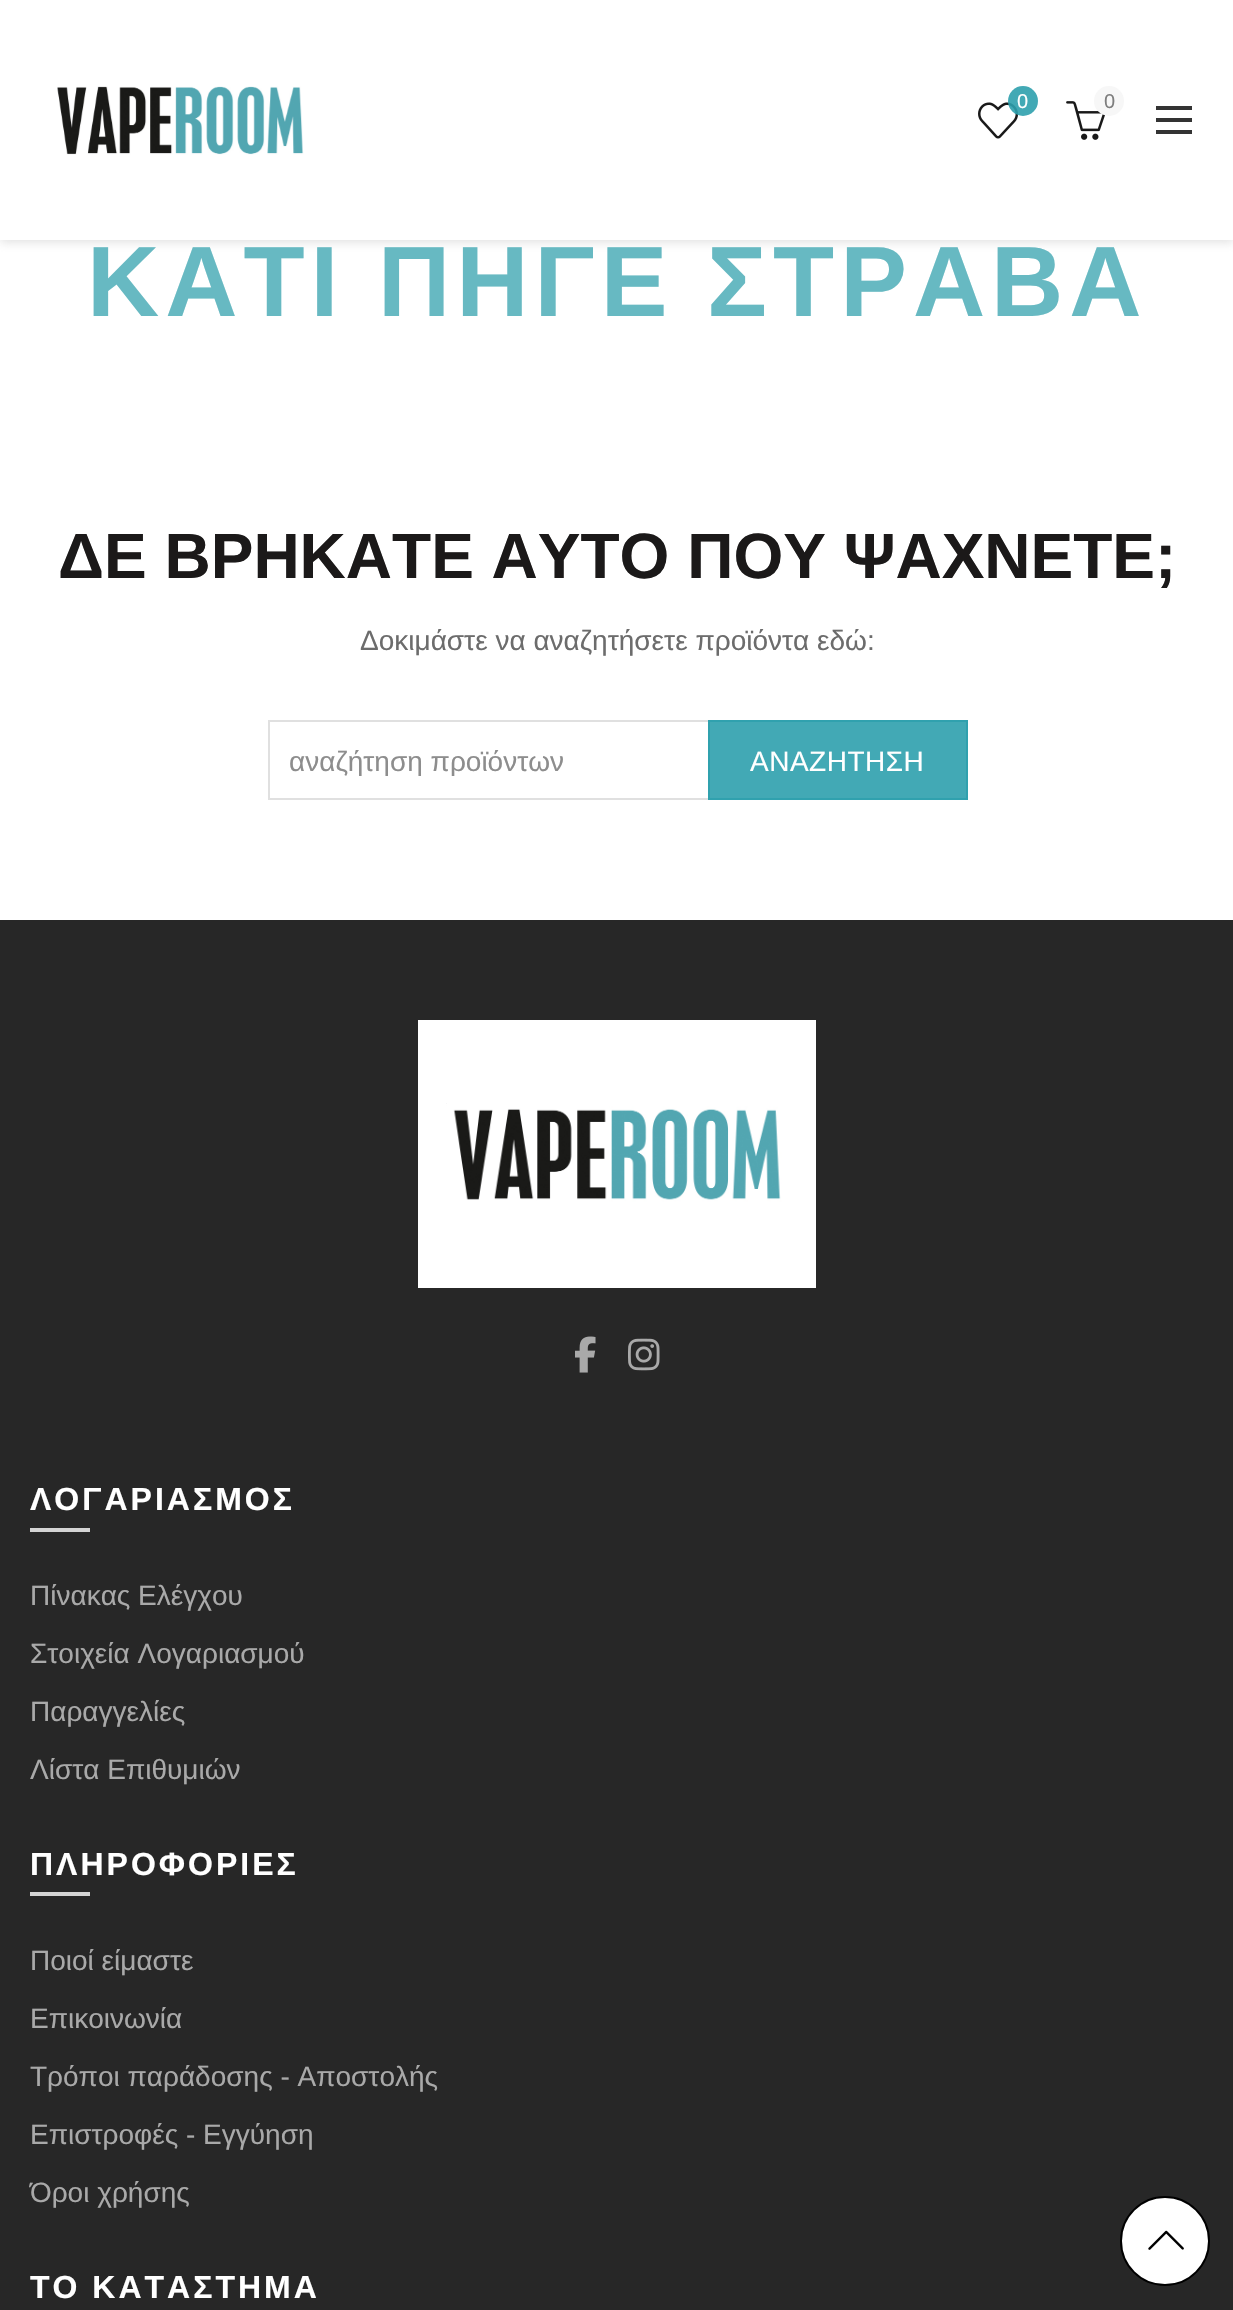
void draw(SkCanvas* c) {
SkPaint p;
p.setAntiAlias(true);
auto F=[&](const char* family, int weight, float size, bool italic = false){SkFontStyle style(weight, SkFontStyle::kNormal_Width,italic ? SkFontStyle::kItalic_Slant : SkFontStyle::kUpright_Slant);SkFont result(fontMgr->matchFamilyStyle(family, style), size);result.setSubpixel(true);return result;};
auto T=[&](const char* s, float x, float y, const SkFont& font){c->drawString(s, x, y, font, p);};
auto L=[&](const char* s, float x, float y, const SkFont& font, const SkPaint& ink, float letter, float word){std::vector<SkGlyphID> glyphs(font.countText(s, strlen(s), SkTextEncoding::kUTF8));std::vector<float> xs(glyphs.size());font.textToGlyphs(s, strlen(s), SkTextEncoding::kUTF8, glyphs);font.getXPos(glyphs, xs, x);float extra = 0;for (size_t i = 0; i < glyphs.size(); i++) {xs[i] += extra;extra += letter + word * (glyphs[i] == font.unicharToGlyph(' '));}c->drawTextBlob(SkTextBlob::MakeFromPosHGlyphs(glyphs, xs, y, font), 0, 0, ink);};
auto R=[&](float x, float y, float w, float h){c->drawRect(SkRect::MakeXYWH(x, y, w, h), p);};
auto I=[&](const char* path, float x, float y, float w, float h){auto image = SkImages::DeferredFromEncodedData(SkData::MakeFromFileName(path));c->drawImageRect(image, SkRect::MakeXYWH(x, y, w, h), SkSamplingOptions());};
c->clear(0xffffffff);
p.setColor(0x80bebebe);
p.setMaskFilter(SkMaskFilter::MakeBlur(kNormal_SkBlurStyle, 5));
c->drawRect(SkRect::MakeXYWH(0,2,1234,240),p);
p.setMaskFilter(nullptr);
p.setColor(0xffffffff);
R(0,0,1233,240);
I("1.png",57,86,247,69);
I("2.png",978,102,41,37);
p.setColor(0xe62ea0ad);
c->drawCircle(1023,101,15,p);
auto f1 = F("Liberation Sans",400,20);
p.setColor(0xffffffff);
T("0",1017,108,f1);
I("3.png",1066,101,39,39);
p.setColor(0xfff7f7f7);
c->drawCircle(1109,101,15,p);
p.setColor(0xff7e7e7e);
T("0",1104,108,f1);
p.setColor(0xff333333);
R(1156,118,36,4);
R(1156,106,36,4);
R(1156,130,36,4);
auto f2 = F("Liberation Sans",700,100);
p.setColor(0xff67b9c2);
L("ΚΑΤΙ ΠΗΓΕ ΣΤΡΑΒΑ",87,316,f2,p,6,0);
auto f3 = F("Liberation Sans",700,64);
p.setColor(0xff1b1919);
T("ΔΕ ΒΡΗΚΑΤΕ ΑΥΤΟ ΠΟΥ ΨΑΧΝΕΤΕ;",58,578,f3);
auto f4 = F("Liberation Sans",400,28);
p.setColor(0xff6c6c6c);
T("Δοκιμάστε να αναζητήσετε προϊόντα εδώ:",360,650,f4);
p.setStroke(true);
p.setStrokeWidth(2);
p.setColor(0xffe0e0e0);
c->drawRect(SkRect::MakeXYWH(269,721,698,78),p);
c->save();
c->clipRect(SkRect::MakeXYWH(290,744,466,32));
p.setStroke(false);
p.setColor(0xff8d8d8d);
T("αναζήτηση προϊόντων",289,771,f4);
c->restore();
p.setColor(0xe62ea0ad);
R(708,720,260,80);
p.setStroke(true);
c->drawRect(SkRect::MakeXYWH(709,721,258,78),p);
p.setStroke(false);
p.setColor(0xffffffff);
L("ΑΝΑΖΗΤΗΣΗ",750,771,f4,p,.5,0);
p.setColor(0xff272727);
R(0,920,1233,1390);
I("4.png",418,1020,398,268);
I("5.png",575,1336,21,37);
I("6.png",628,1338,32,33);
auto f5 = F("Liberation Sans",700,32);
p.setColor(0xffffffff);
L("ΛΟΓΑΡΙΑΣΜΟΣ",30,1510,f5,p,3,0);
p.setColor(0xffd4d4d4);
R(30,1528,60,4);
p.setColor(0xffa9a9a9);
T("Πίνακας Ελέγχου",30,1605,f4);
T("Στοιχεία Λογαριασμού",30,1663,f4);
T("Παραγγελίες",30,1721,f4);
T("Λίστα Επιθυμιών",30,1779,f4);
p.setColor(0xffffffff);
L("ΠΛΗΡΟΦΟΡΙΕΣ",30,1875,f5,p,3,0);
p.setColor(0xffd4d4d4);
R(30,1892,60,4);
p.setColor(0xffa9a9a9);
T("Ποιοί είμαστε",30,1970,f4);
T("Επικοινωνία",30,2028,f4);
T("Τρόποι παράδοσης - Αποστολής",30,2086,f4);
T("Επιστροφές - Εγγύηση",30,2144,f4);
T("Όροι χρήσης",30,2202,f4);
p.setColor(0xffffffff);
L("ΤΟ ΚΑΤΑΣΤΗΜΑ",30,2298,f5,p,3,0);
c->drawCircle(1165,2241,44,p);
p.setStroke(true);
p.setColor(0xff000000);
c->drawCircle(1165,2241,44,p);
I("7.png",1148,2230,36,20);
}
